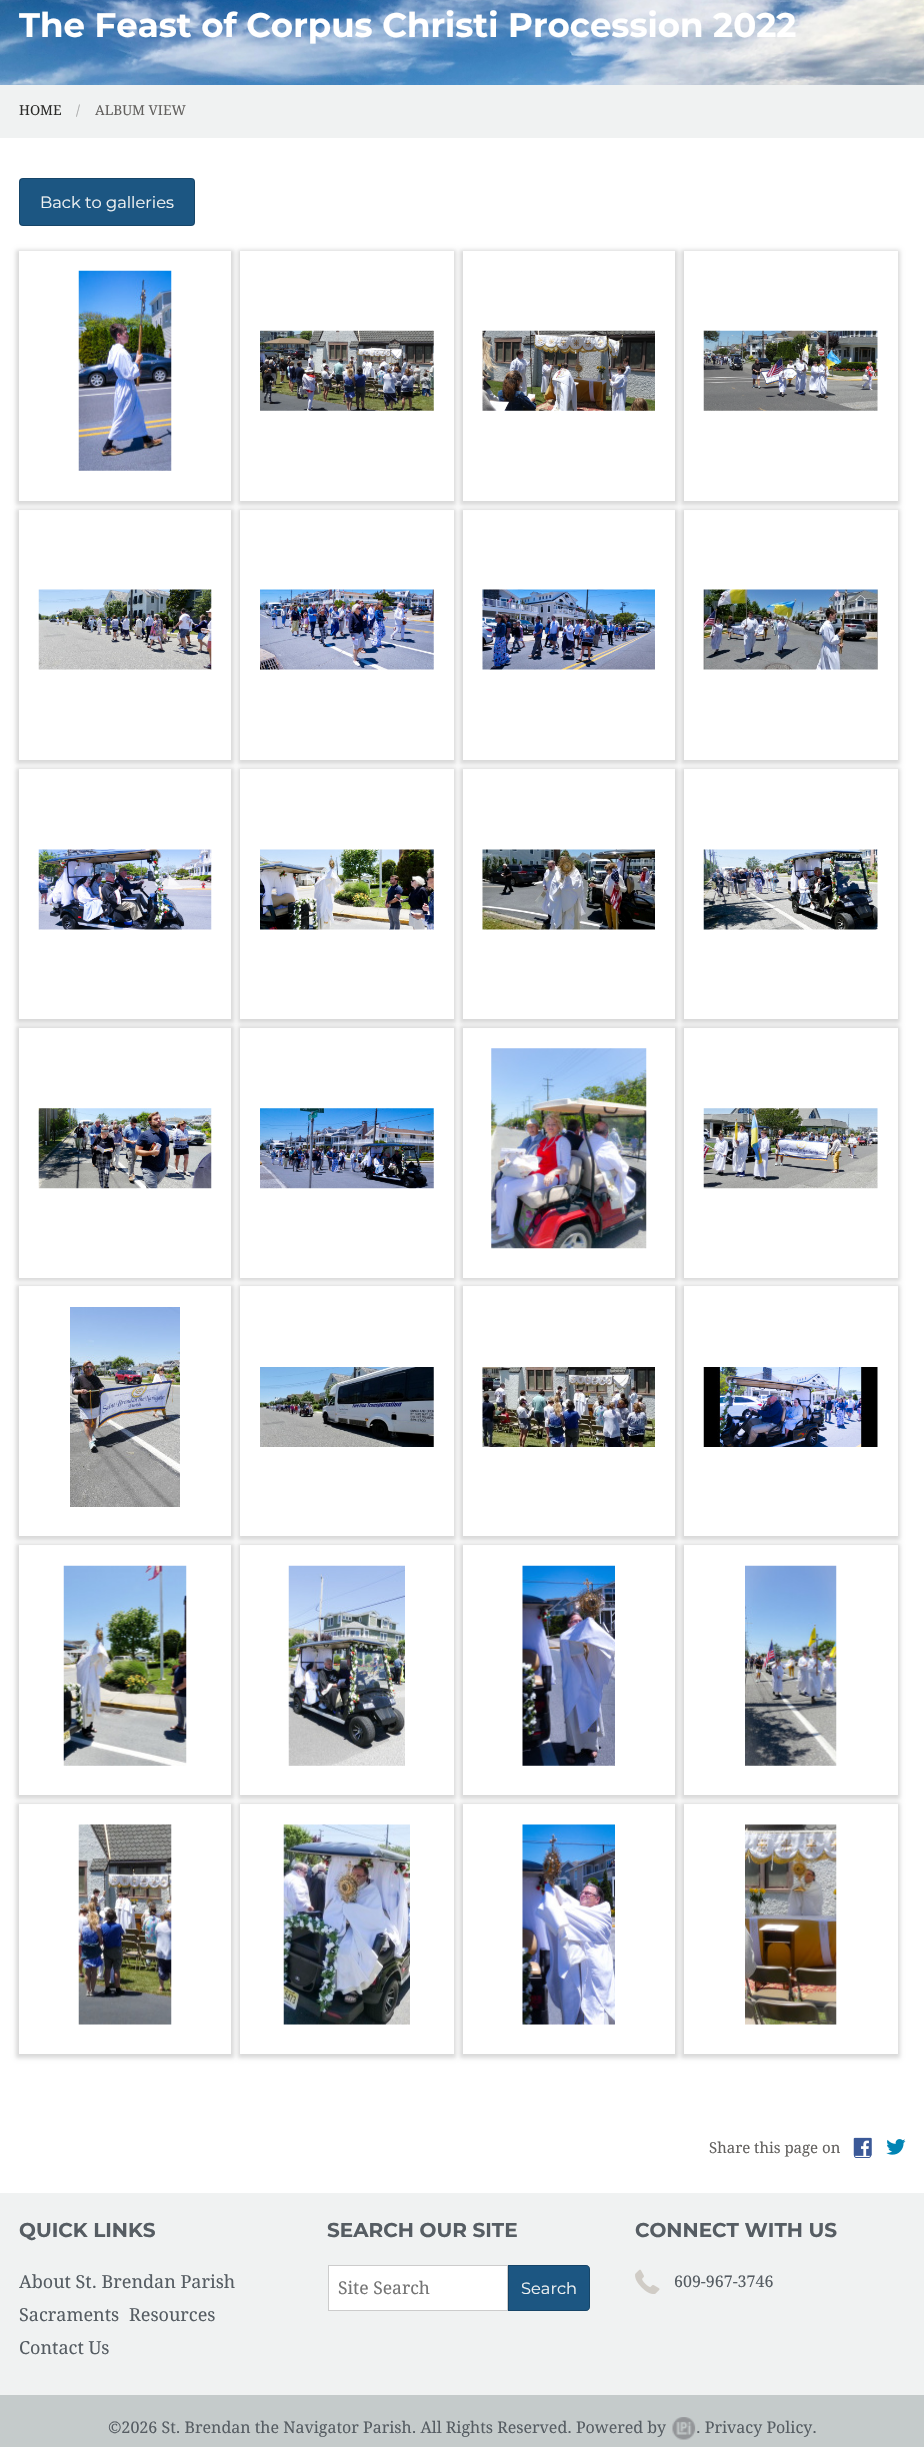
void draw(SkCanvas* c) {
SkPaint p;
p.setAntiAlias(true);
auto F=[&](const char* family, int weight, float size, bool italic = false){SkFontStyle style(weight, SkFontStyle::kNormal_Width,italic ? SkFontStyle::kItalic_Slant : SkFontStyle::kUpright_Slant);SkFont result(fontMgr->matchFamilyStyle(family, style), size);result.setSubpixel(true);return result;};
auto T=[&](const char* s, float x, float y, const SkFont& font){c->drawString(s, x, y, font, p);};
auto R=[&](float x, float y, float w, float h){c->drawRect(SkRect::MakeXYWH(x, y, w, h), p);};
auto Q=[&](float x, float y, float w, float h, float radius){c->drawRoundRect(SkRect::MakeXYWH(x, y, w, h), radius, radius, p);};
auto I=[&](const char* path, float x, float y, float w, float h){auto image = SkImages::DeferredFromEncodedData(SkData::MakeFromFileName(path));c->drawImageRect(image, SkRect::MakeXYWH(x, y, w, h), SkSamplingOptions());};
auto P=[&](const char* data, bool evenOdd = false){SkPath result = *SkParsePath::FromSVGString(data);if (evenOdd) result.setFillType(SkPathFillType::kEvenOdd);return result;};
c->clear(0xffffffff);
I("1.png",0,0,924,85);
auto f1 = F("Montserrat",700,34);
p.setColor(0xffffffff);
T("The Feast of Corpus Christi Procession 2022",19,37,f1);
p.setColor(0xfff0f2f2);
R(0,85,924,53);
auto f2 = F("Droid Serif",400,13.75);
p.setColor(0xff2c2c2a);
T("HOME",19,115,f2);
p.setColor(0xffaaaaaa);
T("/",76,115,f2);
p.setColor(0xff63615f);
T("ALBUM VIEW",95,115,f2);
p.setColor(0xff1c5682);
Q(19,178,176,48,4);
p.setStroke(true);
p.setStrokeWidth(1);
p.setColor(0x33000000);
c->drawRoundRect(SkRect::MakeXYWH(19.5,178.5,175,47),3.5,3.5,p);
auto f3 = F("Montserrat",400,16.25);
p.setStroke(false);
p.setColor(0xfff0f2f2);
T("Back to galleries",40,208,f3);
c->save();
c->clipPath(P("M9 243h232v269h-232zm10 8h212v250h-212z",true),true);
p.setColor(0x26000000);
p.setMaskFilter(SkMaskFilter::MakeBlur(kNormal_SkBlurStyle, 2));
c->drawRect(SkRect::MakeXYWH(16,250,218,255),p);
p.setMaskFilter(nullptr);
c->restore();
I("2.png",78,270,94,201);
c->save();
c->clipPath(P("M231 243h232v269h-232zm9 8h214v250h-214z",true),true);
p.setMaskFilter(SkMaskFilter::MakeBlur(kNormal_SkBlurStyle, 2));
c->drawRect(SkRect::MakeXYWH(238,250,218,255),p);
p.setMaskFilter(nullptr);
c->restore();
I("3.png",260,330,174,81);
c->save();
c->clipPath(P("M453 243h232v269h-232zm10 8h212v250h-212z",true),true);
p.setMaskFilter(SkMaskFilter::MakeBlur(kNormal_SkBlurStyle, 2));
c->drawRect(SkRect::MakeXYWH(460,250,218,255),p);
p.setMaskFilter(nullptr);
c->restore();
I("4.png",482,330,173,81);
c->save();
c->clipPath(P("M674 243h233v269h-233zm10 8h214v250h-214z",true),true);
p.setMaskFilter(SkMaskFilter::MakeBlur(kNormal_SkBlurStyle, 2));
c->drawRect(SkRect::MakeXYWH(681,250,219,255),p);
p.setMaskFilter(nullptr);
c->restore();
I("5.png",703,330,175,81);
c->save();
c->clipPath(P("M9 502h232v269h-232zm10 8h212v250h-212z",true),true);
p.setMaskFilter(SkMaskFilter::MakeBlur(kNormal_SkBlurStyle, 2));
c->drawRect(SkRect::MakeXYWH(16,509,218,255),p);
p.setMaskFilter(nullptr);
c->restore();
I("6.png",38,589,174,81);
c->save();
c->clipPath(P("M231 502h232v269h-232zm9 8h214v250h-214z",true),true);
p.setMaskFilter(SkMaskFilter::MakeBlur(kNormal_SkBlurStyle, 2));
c->drawRect(SkRect::MakeXYWH(238,509,218,255),p);
p.setMaskFilter(nullptr);
c->restore();
I("7.png",260,589,174,81);
c->save();
c->clipPath(P("M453 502h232v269h-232zm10 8h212v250h-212z",true),true);
p.setMaskFilter(SkMaskFilter::MakeBlur(kNormal_SkBlurStyle, 2));
c->drawRect(SkRect::MakeXYWH(460,509,218,255),p);
p.setMaskFilter(nullptr);
c->restore();
I("8.png",482,589,173,81);
c->save();
c->clipPath(P("M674 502h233v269h-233zm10 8h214v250h-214z",true),true);
p.setMaskFilter(SkMaskFilter::MakeBlur(kNormal_SkBlurStyle, 2));
c->drawRect(SkRect::MakeXYWH(681,509,219,255),p);
p.setMaskFilter(nullptr);
c->restore();
I("9.png",703,589,175,81);
c->save();
c->clipPath(P("M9 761h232v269h-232zm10 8h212v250h-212z",true),true);
p.setMaskFilter(SkMaskFilter::MakeBlur(kNormal_SkBlurStyle, 2));
c->drawRect(SkRect::MakeXYWH(16,768,218,255),p);
p.setMaskFilter(nullptr);
c->restore();
I("10.png",38,849,174,81);
c->save();
c->clipPath(P("M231 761h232v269h-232zm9 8h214v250h-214z",true),true);
p.setMaskFilter(SkMaskFilter::MakeBlur(kNormal_SkBlurStyle, 2));
c->drawRect(SkRect::MakeXYWH(238,768,218,255),p);
p.setMaskFilter(nullptr);
c->restore();
I("11.png",260,849,174,81);
c->save();
c->clipPath(P("M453 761h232v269h-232zm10 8h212v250h-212z",true),true);
p.setMaskFilter(SkMaskFilter::MakeBlur(kNormal_SkBlurStyle, 2));
c->drawRect(SkRect::MakeXYWH(460,768,218,255),p);
p.setMaskFilter(nullptr);
c->restore();
I("12.png",482,849,173,81);
c->save();
c->clipPath(P("M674 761h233v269h-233zm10 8h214v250h-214z",true),true);
p.setMaskFilter(SkMaskFilter::MakeBlur(kNormal_SkBlurStyle, 2));
c->drawRect(SkRect::MakeXYWH(681,768,219,255),p);
p.setMaskFilter(nullptr);
c->restore();
I("13.png",703,849,175,81);
c->save();
c->clipPath(P("M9 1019h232v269h-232zm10 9h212v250h-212z",true),true);
p.setMaskFilter(SkMaskFilter::MakeBlur(kNormal_SkBlurStyle, 2));
c->drawRect(SkRect::MakeXYWH(16,1026,218,255),p);
p.setMaskFilter(nullptr);
c->restore();
I("14.png",38,1108,174,81);
c->save();
c->clipPath(P("M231 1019h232v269h-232zm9 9h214v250h-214z",true),true);
p.setMaskFilter(SkMaskFilter::MakeBlur(kNormal_SkBlurStyle, 2));
c->drawRect(SkRect::MakeXYWH(238,1026,218,255),p);
p.setMaskFilter(nullptr);
c->restore();
I("15.png",260,1108,174,81);
c->save();
c->clipPath(P("M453 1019h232v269h-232zm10 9h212v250h-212z",true),true);
p.setMaskFilter(SkMaskFilter::MakeBlur(kNormal_SkBlurStyle, 2));
c->drawRect(SkRect::MakeXYWH(460,1026,218,255),p);
p.setMaskFilter(nullptr);
c->restore();
I("16.png",491,1048,156,201);
c->save();
c->clipPath(P("M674 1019h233v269h-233zm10 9h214v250h-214z",true),true);
p.setMaskFilter(SkMaskFilter::MakeBlur(kNormal_SkBlurStyle, 2));
c->drawRect(SkRect::MakeXYWH(681,1026,219,255),p);
p.setMaskFilter(nullptr);
c->restore();
I("17.png",703,1108,175,81);
c->save();
c->clipPath(P("M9 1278h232v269h-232zm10 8h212v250h-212z",true),true);
p.setMaskFilter(SkMaskFilter::MakeBlur(kNormal_SkBlurStyle, 2));
c->drawRect(SkRect::MakeXYWH(16,1285,218,255),p);
p.setMaskFilter(nullptr);
c->restore();
I("18.png",70,1307,110,200);
c->save();
c->clipPath(P("M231 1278h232v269h-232zm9 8h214v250h-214z",true),true);
p.setMaskFilter(SkMaskFilter::MakeBlur(kNormal_SkBlurStyle, 2));
c->drawRect(SkRect::MakeXYWH(238,1285,218,255),p);
p.setMaskFilter(nullptr);
c->restore();
I("19.png",260,1367,174,80);
c->save();
c->clipPath(P("M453 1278h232v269h-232zm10 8h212v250h-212z",true),true);
p.setMaskFilter(SkMaskFilter::MakeBlur(kNormal_SkBlurStyle, 2));
c->drawRect(SkRect::MakeXYWH(460,1285,218,255),p);
p.setMaskFilter(nullptr);
c->restore();
I("20.png",482,1367,173,80);
c->save();
c->clipPath(P("M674 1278h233v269h-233zm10 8h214v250h-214z",true),true);
p.setMaskFilter(SkMaskFilter::MakeBlur(kNormal_SkBlurStyle, 2));
c->drawRect(SkRect::MakeXYWH(681,1285,219,255),p);
p.setMaskFilter(nullptr);
c->restore();
I("21.png",703,1367,175,80);
c->save();
c->clipPath(P("M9 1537h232v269h-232zm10 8h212v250h-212z",true),true);
p.setMaskFilter(SkMaskFilter::MakeBlur(kNormal_SkBlurStyle, 2));
c->drawRect(SkRect::MakeXYWH(16,1544,218,255),p);
p.setMaskFilter(nullptr);
c->restore();
I("22.png",63,1565,124,201);
c->save();
c->clipPath(P("M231 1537h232v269h-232zm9 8h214v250h-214z",true),true);
p.setMaskFilter(SkMaskFilter::MakeBlur(kNormal_SkBlurStyle, 2));
c->drawRect(SkRect::MakeXYWH(238,1544,218,255),p);
p.setMaskFilter(nullptr);
c->restore();
I("23.png",288,1565,117,201);
c->save();
c->clipPath(P("M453 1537h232v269h-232zm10 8h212v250h-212z",true),true);
p.setMaskFilter(SkMaskFilter::MakeBlur(kNormal_SkBlurStyle, 2));
c->drawRect(SkRect::MakeXYWH(460,1544,218,255),p);
p.setMaskFilter(nullptr);
c->restore();
I("24.png",522,1565,93,201);
c->save();
c->clipPath(P("M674 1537h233v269h-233zm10 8h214v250h-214z",true),true);
p.setMaskFilter(SkMaskFilter::MakeBlur(kNormal_SkBlurStyle, 2));
c->drawRect(SkRect::MakeXYWH(681,1544,219,255),p);
p.setMaskFilter(nullptr);
c->restore();
I("25.png",745,1565,92,201);
c->save();
c->clipPath(P("M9 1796h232v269h-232zm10 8h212v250h-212z",true),true);
p.setMaskFilter(SkMaskFilter::MakeBlur(kNormal_SkBlurStyle, 2));
c->drawRect(SkRect::MakeXYWH(16,1803,218,255),p);
p.setMaskFilter(nullptr);
c->restore();
I("26.png",78,1824,94,201);
c->save();
c->clipPath(P("M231 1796h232v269h-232zm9 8h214v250h-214z",true),true);
p.setMaskFilter(SkMaskFilter::MakeBlur(kNormal_SkBlurStyle, 2));
c->drawRect(SkRect::MakeXYWH(238,1803,218,255),p);
p.setMaskFilter(nullptr);
c->restore();
I("27.png",283,1824,127,201);
c->save();
c->clipPath(P("M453 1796h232v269h-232zm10 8h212v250h-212z",true),true);
p.setMaskFilter(SkMaskFilter::MakeBlur(kNormal_SkBlurStyle, 2));
c->drawRect(SkRect::MakeXYWH(460,1803,218,255),p);
p.setMaskFilter(nullptr);
c->restore();
I("28.png",522,1824,93,201);
c->save();
c->clipPath(P("M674 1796h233v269h-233zm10 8h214v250h-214z",true),true);
p.setMaskFilter(SkMaskFilter::MakeBlur(kNormal_SkBlurStyle, 2));
c->drawRect(SkRect::MakeXYWH(681,1803,219,255),p);
p.setMaskFilter(nullptr);
c->restore();
I("29.png",745,1824,92,201);
auto f4 = F("Droid Serif",400,15);
p.setColor(0xff63615f);
T("Share this page on",709,2153,f4);
p.setStroke(true);
p.setColor(0xff3b5998);
c->drawRoundRect(SkRect::MakeXYWH(854.5,2138.5,16,19),1.5,1.5,p);
I("30.png",853,2137,19,19);
I("31.png",886,2139,20,16);
p.setStroke(false);
p.setColor(0xfff0f2f2);
R(0,2193,924,202);
auto f5 = F("Montserrat",700,20);
p.setColor(0xff565d63);
T("QUICK LINKS",19,2237,f5);
auto f6 = F("Droid Serif",400,18);
T("About St. Brendan Parish",19,2288,f6);
T("Sacraments",19,2321,f6);
T("Resources",129,2321,f6);
T("Contact Us",19,2354,f6);
T("SEARCH OUR SITE",327,2237,f5);
p.setColor(0xffffffff);
c->drawRect(SkRect::MakeXYWH(328.5,2265.5,179,45),p);
p.setStroke(true);
p.setColor(0xffcccccc);
c->drawRect(SkRect::MakeXYWH(328.5,2265.5,179,45),p);
auto f7 = F("Droid Serif",400,17.5);
p.setStroke(false);
p.setColor(0xff757575);
T("Site Search",338,2294,f7);
p.setColor(0xff1c5682);
c->drawPath(P("M508 2265h78c2 0 4 2 4 4v38c0 2-2 4-4 4h-78z"),p);
p.setStroke(true);
p.setColor(0x33000000);
c->drawPath(P("M508.5 2265.5h77.5c2 0 3.5 1.5 3.5 3.5v38c0 2-1.5 3.5-3.5 3.5h-77.5z"),p);
p.setStroke(false);
p.setColor(0xfff0f2f2);
T("Search",521,2294,f3);
p.setColor(0xff565d63);
T("CONNECT WITH US",635,2237,f5);
I("32.png",635,2269,25,25);
auto f8 = F("Droid Serif",400,16);
T("609-967-3746",674,2287,f8);
p.setColor(0xffc5cbcb);
R(0,2395,924,52);
p.setColor(0xff565d63);
T("©2026 St. Brendan the Navigator Parish. All Rights Reserved. Powered by",108,2433,f8);
I("33.png",672,2417,24,23);
T(". Privacy Policy.",696,2433,f8);
}
